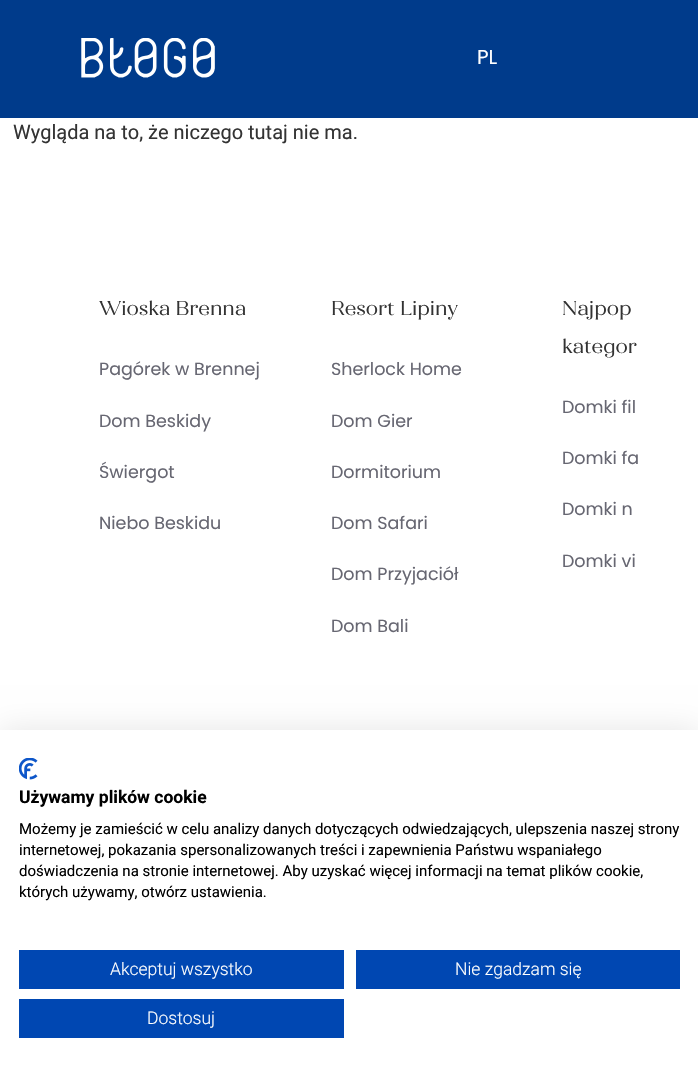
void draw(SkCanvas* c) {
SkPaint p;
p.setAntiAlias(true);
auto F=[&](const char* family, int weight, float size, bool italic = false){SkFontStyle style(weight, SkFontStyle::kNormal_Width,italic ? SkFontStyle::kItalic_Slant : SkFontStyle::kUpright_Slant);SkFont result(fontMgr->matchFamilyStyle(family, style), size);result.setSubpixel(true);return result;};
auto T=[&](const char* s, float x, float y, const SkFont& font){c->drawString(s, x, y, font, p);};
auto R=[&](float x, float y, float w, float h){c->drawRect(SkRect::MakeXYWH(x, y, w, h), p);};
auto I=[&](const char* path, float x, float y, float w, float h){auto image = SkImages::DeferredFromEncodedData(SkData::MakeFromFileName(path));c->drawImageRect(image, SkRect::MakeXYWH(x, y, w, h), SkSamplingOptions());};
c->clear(0xffffffff);
p.setColor(0xff003b8b);
R(0,0,698,118);
I("1.png",81,38,134,40);
auto f1 = F("Poppins",400,20);
p.setColor(0xffffffff);
T("PL",477,64,f1);
auto f2 = F("Roboto",400,20);
p.setColor(0xff333333);
T("Wygląda na to, że niczego tutaj nie ma.",13,139,f2);
auto f3 = F("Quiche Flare",400,20);
T("Wioska Brenna",99,315,f3);
auto f4 = F("Poppins",400,17.5);
p.setColor(0xff676772);
T("Pagórek w Brennej",99,375,f4);
T("Dom Beskidy",99,427,f4);
T("Świergot",99,478,f4);
T("Niebo Beskidu",99,529,f4);
p.setColor(0xff333333);
T("Resort Lipiny",331,315,f3);
p.setColor(0xff676772);
T("Sherlock Home",331,375,f4);
T("Dom Gier",331,427,f4);
T("Dormitorium",331,478,f4);
T("Dom Safari",331,529,f4);
T("Dom Przyjaciół",331,580,f4);
T("Dom Bali",331,632,f4);
p.setColor(0xff333333);
T("Najpop",562,315,f3);
T("kategor",562,353,f3);
p.setColor(0xff676772);
T("Domki fil",562,413,f4);
T("Domki fa",562,464,f4);
T("Domki n",562,515,f4);
T("Domki vi",562,567,f4);
p.setColor(0x1a000000);
p.setMaskFilter(SkMaskFilter::MakeBlur(kNormal_SkBlurStyle, 15));
c->drawRect(SkRect::MakeXYWH(0,730,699,341),p);
p.setMaskFilter(nullptr);
p.setColor(0xffffffff);
R(0,730,698,341);
I("2.png",19,758,19,22);
auto f5 = F("Roboto",700,17.5);
p.setColor(0xff000000);
T("Używamy plików cookie",19,803,f5);
auto f6 = F("Roboto",400,15);
T("Możemy je zamieścić w celu analizy danych dotyczących odwiedzających, ulepszenia naszej strony",19,834,f6);
T("internetowej, pokazania spersonalizowanych treści i zapewnienia Państwu wspaniałego",19,855,f6);
T("doświadczenia na stronie internetowej. Aby uzyskać więcej informacji na temat plików cookie,",19,876,f6);
T("których używamy, otwórz ustawienia.",19,897,f6);
p.setColor(0xff0047b2);
R(19,950,325,39);
auto f7 = F("Roboto",300,17.5);
p.setColor(0xffffffff);
T("Akceptuj wszystko",110,975,f7);
p.setColor(0xff0047b2);
R(356,950,324,39);
p.setColor(0xffffffff);
T("Nie zgadzam się",455,975,f7);
p.setColor(0xff0047b2);
R(19,999,325,39);
p.setColor(0xffffffff);
T("Dostosuj",147,1024,f7);
}
